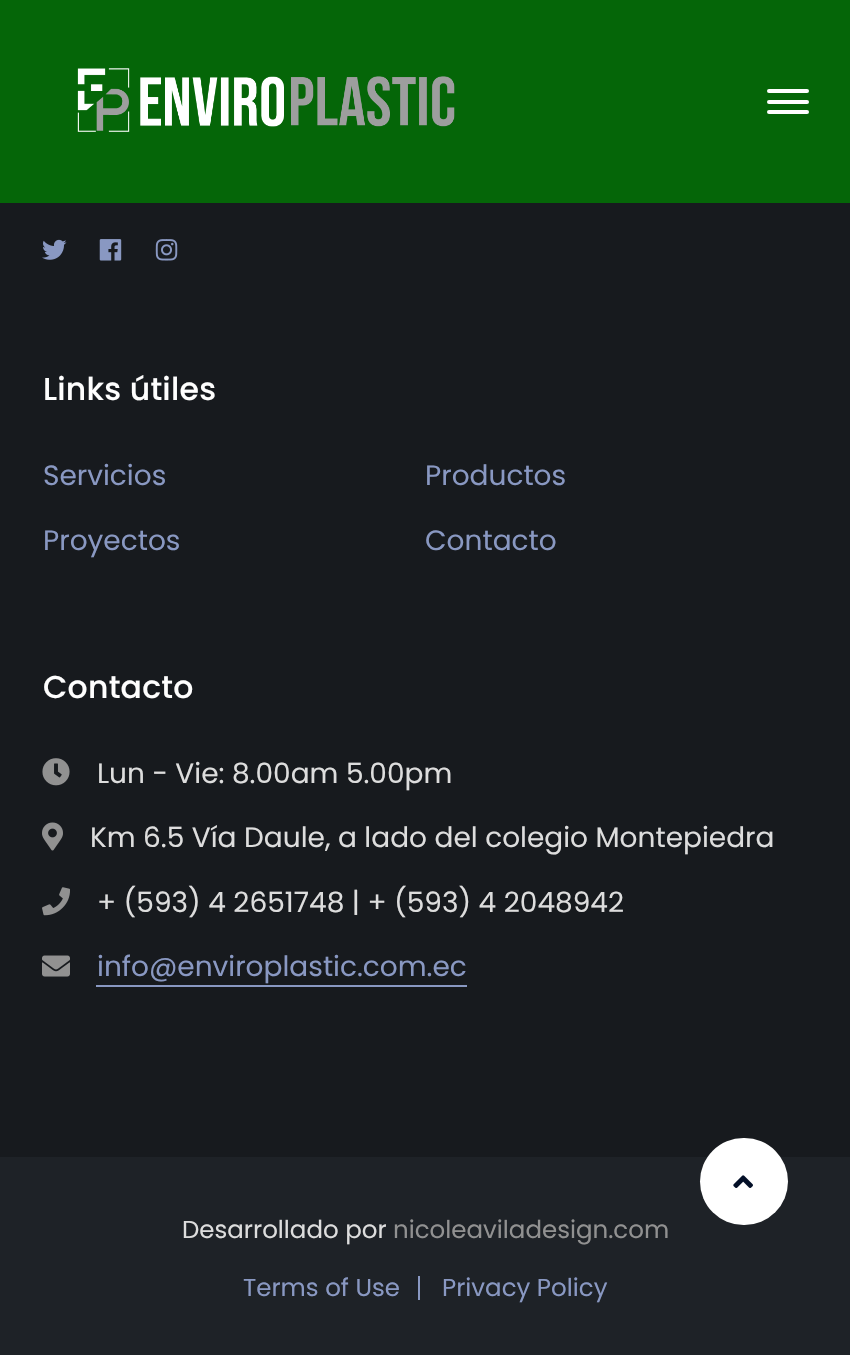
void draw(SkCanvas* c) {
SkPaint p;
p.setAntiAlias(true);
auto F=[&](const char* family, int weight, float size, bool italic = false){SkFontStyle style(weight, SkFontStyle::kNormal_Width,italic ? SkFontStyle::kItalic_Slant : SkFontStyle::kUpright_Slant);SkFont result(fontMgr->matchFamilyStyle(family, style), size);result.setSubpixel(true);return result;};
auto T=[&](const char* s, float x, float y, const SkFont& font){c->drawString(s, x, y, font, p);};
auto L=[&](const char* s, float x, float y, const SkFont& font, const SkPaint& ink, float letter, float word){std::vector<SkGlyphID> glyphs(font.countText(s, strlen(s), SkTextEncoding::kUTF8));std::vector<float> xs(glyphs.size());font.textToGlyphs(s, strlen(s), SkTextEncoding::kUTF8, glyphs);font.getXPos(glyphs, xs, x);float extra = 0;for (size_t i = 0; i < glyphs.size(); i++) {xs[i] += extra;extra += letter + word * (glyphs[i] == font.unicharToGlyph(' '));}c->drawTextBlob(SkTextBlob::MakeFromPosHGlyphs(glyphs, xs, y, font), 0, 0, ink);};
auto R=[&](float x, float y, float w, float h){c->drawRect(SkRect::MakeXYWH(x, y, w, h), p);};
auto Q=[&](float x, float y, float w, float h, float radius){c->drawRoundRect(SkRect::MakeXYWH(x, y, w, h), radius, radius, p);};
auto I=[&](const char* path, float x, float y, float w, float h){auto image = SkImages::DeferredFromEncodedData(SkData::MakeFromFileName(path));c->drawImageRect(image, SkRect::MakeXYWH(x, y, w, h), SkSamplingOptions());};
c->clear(0xff1e2227);
p.setColor(0xff056608);
R(0,0,850,203);
I("1.png",77,68,378,64);
p.setColor(0xffffffff);
Q(767,89,42,4,2);
Q(767,100,42,4,2);
Q(767,110,42,4,2);
p.setColor(0xff171a1e);
R(0,203,850,954);
I("2.png",42,239,25,21);
I("3.png",99,239,23,22);
I("4.png",155,239,23,22);
auto f1 = F("Poppins",500,31.5);
p.setColor(0xfffefefe);
L("Links útiles",43,400,f1,p,.25,0);
auto f2 = F("Poppins",400,28);
p.setColor(0xff8998c2);
T("Servicios",43,485,f2);
T("Productos",425,485,f2);
T("Proyectos",43,550,f2);
T("Contacto",425,550,f2);
p.setColor(0xfffefefe);
L("Contacto",43,698,f1,p,.25,0);
I("5.png",42,758,28,28);
p.setColor(0xffdddddd);
T("Lun - Vie: 8.00am 5.00pm",97,783,f2);
I("6.png",42,822,21,29);
T("Km 6.5 Vía Daule, a lado del colegio Montepiedra",90,847,f2);
I("7.png",42,887,28,29);
T("+ (593) 4 2651748 | + (593) 4 2048942",97,912,f2);
I("8.png",42,955,28,22);
p.setColor(0xff8998c2);
T("info@enviroplastic.com.ec",97,976,f2);
R(96,985,371,2);
auto f3 = F("Poppins",400,24.5);
p.setColor(0xffdddddd);
T("Desarrollado por",182,1238,f3);
p.setColor(0xff919191);
T("nicoleaviladesign.com",393,1238,f3);
p.setColor(0xff8998c2);
T("Terms of Use",243,1296,f3);
R(418,1276,2,24);
T("Privacy Policy",442,1296,f3);
p.setColor(0xffffffff);
Q(700,1138,88,87,43.5);
I("9.png",733,1175,20,13);
}
